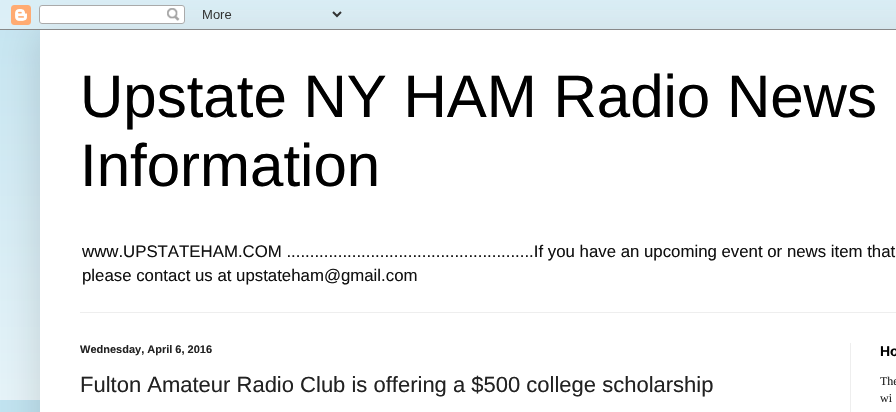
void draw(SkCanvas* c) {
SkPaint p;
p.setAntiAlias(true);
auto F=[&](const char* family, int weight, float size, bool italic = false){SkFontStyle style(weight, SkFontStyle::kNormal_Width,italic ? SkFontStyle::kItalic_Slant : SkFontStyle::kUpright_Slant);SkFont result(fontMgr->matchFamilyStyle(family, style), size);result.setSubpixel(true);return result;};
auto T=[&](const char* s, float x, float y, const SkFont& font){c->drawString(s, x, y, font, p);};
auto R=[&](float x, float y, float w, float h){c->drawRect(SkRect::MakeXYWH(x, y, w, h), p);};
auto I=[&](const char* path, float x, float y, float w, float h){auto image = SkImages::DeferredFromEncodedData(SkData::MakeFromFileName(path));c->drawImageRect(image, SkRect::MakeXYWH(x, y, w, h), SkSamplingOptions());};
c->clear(0xffc2e4f1);
I("2.png",0,10,896,390);
p.setColor(0x26000000);
p.setMaskFilter(SkMaskFilter::MakeBlur(kNormal_SkBlurStyle, 20));
c->drawRect(SkRect::MakeXYWH(40,30,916,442),p);
p.setMaskFilter(nullptr);
I("1.png",0,0,896,30);
p.setColor(0xffffffff);
R(40,30,856,382);
auto f1 = F("Liberation Sans",400,60);
p.setColor(0xff000000);
T("Upstate NY HAM Radio News",80,117,f1);
T("Information",80,186,f1);
auto f2 = F("Liberation Sans",400,16.8);
p.setColor(0xff111111);
T("www.UPSTATEHAM.COM .....................................................If you have an upcoming event or news item that",82,257,f2);
T("please contact us at upstateham@gmail.com",82,281,f2);
p.setColor(0xffeeeeee);
R(80,312,816,1);
R(850,343,1,69);
auto f3 = F("Liberation Sans",700,11);
p.setColor(0xff222222);
T("Wednesday, April 6, 2016",80,353,f3);
auto f4 = F("Liberation Sans",400,22);
T("Fulton Amateur Radio Club is offering a $500 college scholarship",80,392,f4);
auto f5 = F("Liberation Sans",700,14);
p.setColor(0xff000000);
T("Ho",880,356,f5);
auto f6 = F("Liberation Serif",400,12);
p.setColor(0xff222222);
T("The",880,385,f6);
T("wi",880,402,f6);
}
